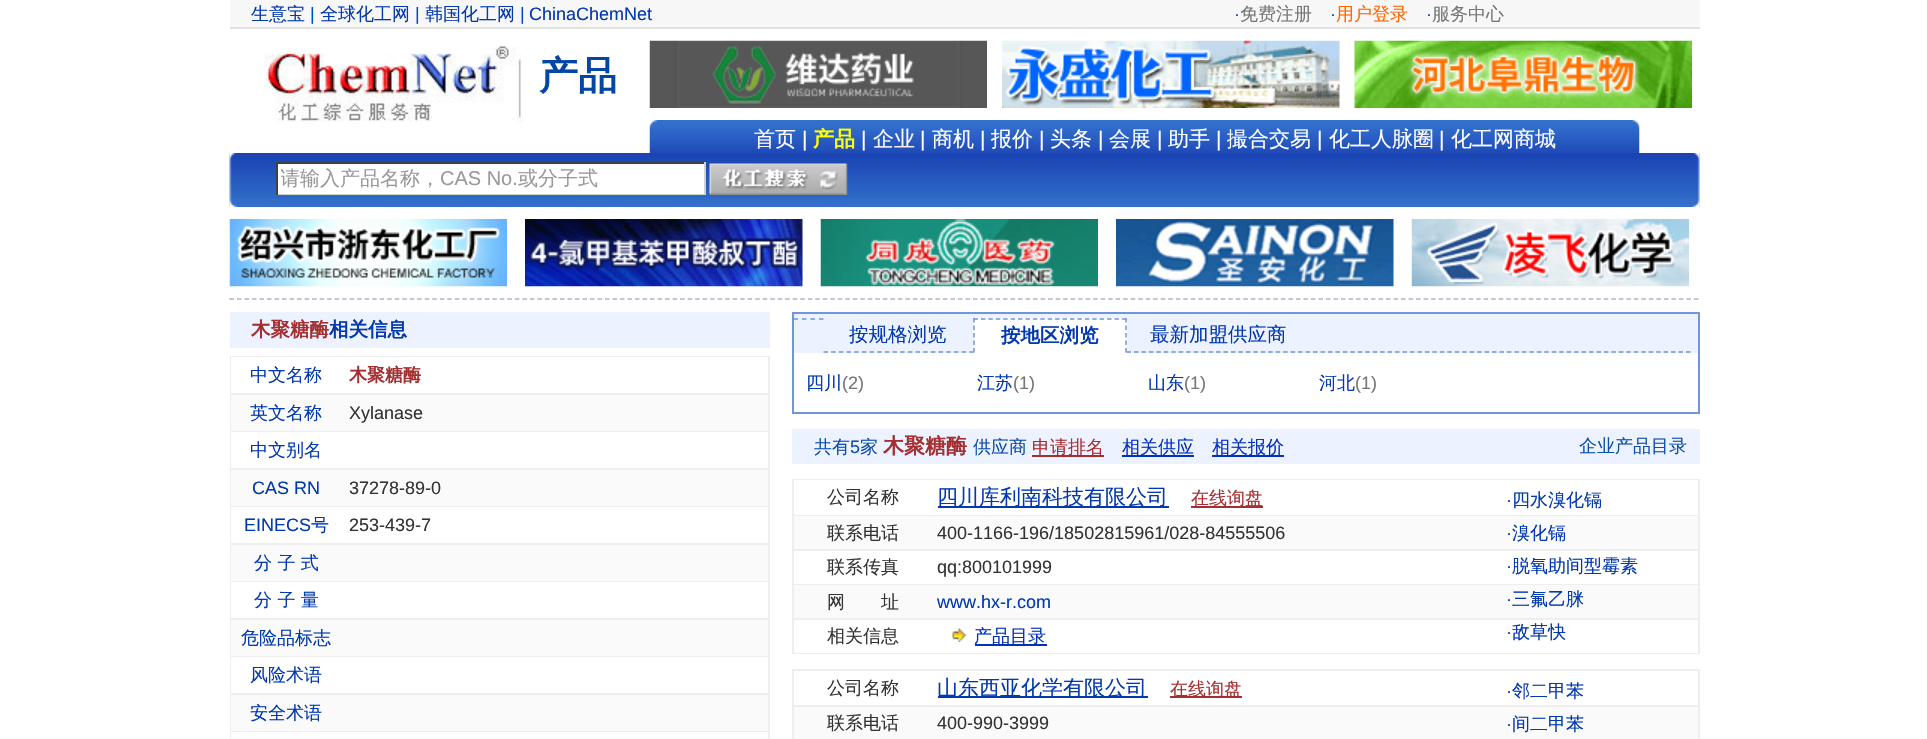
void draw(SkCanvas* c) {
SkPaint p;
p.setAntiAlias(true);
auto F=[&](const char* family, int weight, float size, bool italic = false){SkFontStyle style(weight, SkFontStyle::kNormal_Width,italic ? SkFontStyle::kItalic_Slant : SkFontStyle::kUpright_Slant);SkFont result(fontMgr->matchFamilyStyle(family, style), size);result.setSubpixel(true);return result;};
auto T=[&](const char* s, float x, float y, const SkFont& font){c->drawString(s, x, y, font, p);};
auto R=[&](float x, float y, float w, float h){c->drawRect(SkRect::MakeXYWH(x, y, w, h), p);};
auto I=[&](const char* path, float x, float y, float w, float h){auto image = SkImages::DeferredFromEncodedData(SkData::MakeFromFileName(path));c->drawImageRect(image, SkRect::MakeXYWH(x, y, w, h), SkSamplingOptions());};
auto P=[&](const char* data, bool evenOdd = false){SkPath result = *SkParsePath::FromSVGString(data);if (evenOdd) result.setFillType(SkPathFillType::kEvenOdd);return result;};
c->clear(0xffffffff);
p.setColor(0xfff7f7f7);
R(230,0,1470,27);
p.setColor(0xffe1e1e1);
R(230,27,1470,2);
auto f1 = F("WenQuanYi Zen Hei",500,18);
p.setColor(0xff0239ae);
T("生意宝",251,20,f1);
auto f2 = F("Liberation Sans",400,18);
p.setColor(0xff004cc7);
T("|",310,20,f2);
p.setColor(0xff0239ae);
T("全球化工网",320,20,f1);
p.setColor(0xff004cc7);
T("|",415,20,f2);
p.setColor(0xff0239ae);
T("韩国化工网",425,20,f1);
p.setColor(0xff004cc7);
T("|",520,20,f2);
p.setColor(0xff0239ae);
T("ChinaChemNet",529,20,f2);
p.setColor(0xff004cc7);
T("·",1234,20,f2);
p.setColor(0xff777777);
T("免费注册",1240,20,f1);
p.setColor(0xff004cc7);
T("·",1330,20,f2);
p.setColor(0xffff6600);
T("用户登录",1336,20,f1);
p.setColor(0xff004cc7);
T("·",1426,20,f2);
p.setColor(0xff777777);
T("服务中心",1432,20,f1);
I("1.png",264,46,259,76);
auto f3 = F("WenQuanYi Zen Hei",700,39);
p.setColor(0xff0247a4);
T("产品",539,89,f3);
I("2.png",649,40,338,68);
I("3.png",1002,40,338,68);
I("4.png",1354,40,338,68);
I("5.png",649,120,8,33);
I("6.png",657,120,975,33);
auto f4 = F("WenQuanYi Zen Hei",500,21);
p.setColor(0xffffffff);
T("首页",754,146,f4);
auto f5 = F("Liberation Sans",400,21);
T("|",802,146,f5);
auto f6 = F("WenQuanYi Zen Hei",700,21);
p.setColor(0xffffff00);
T("产品",813,146,f6);
p.setColor(0xffffffff);
T("|",861,146,f5);
T("企业",873,146,f4);
T("|",920,146,f5);
T("商机",932,146,f4);
T("|",980,146,f5);
T("报价",991,146,f4);
T("|",1039,146,f5);
T("头条",1050,146,f4);
T("|",1098,146,f5);
T("会展",1109,146,f4);
T("|",1157,146,f5);
T("助手",1168,146,f4);
T("|",1216,146,f5);
T("撮合交易",1227,146,f4);
T("|",1317,146,f5);
T("化工人脉圈",1329,146,f4);
T("|",1439,146,f5);
T("化工网商城",1451,146,f4);
I("7.png",1632,120,8,33);
I("8.png",229,153,1471,54);
I("9.png",229,153,9,54);
R(278,164,426,30);
p.setColor(0xff41413f);
R(276,162,429,2);
p.setColor(0xffd2d3ce);
R(704,162,2,33);
R(276,194,429,1);
p.setColor(0xff41413f);
R(276,162,2,33);
c->save();
c->clipRect(SkRect::MakeXYWH(281,165,420,27));
auto f7 = F("WenQuanYi Zen Hei",500,20);
p.setColor(0xff999999);
T("请输入产品名称，",280,185,f7);
c->restore();
auto f8 = F("Liberation Sans",400,20);
T("CAS No.",440,185,f8);
T("或分子式",518,185,f7);
I("10.png",709,163,139,32);
I("11.png",1692,153,8,54);
p.setStroke(true);
p.setStrokeWidth(1.5);
p.setColor(0xffabb5c6);
p.setPathEffect(SkDashPathEffect::Make({{4.5f,3.01f}}, 0));
c->drawPath(P("M229.5 299h1470"),p);
p.setPathEffect(nullptr);
I("12.png",229,219,278,68);
I("13.png",525,219,278,68);
I("14.png",820,219,278,68);
I("15.png",1116,219,278,68);
I("16.png",1411,219,278,68);
p.setStroke(false);
p.setColor(0xffecf2ff);
R(230,312,540,36);
auto f9 = F("WenQuanYi Zen Hei",700,19.5);
p.setColor(0xffa52e30);
T("木聚糖酶",251,336,f9);
p.setColor(0xff0239ae);
T("相关信息",329,336,f9);
p.setColor(0xffeeeeee);
R(230,356,540,383);
p.setColor(0xffffffff);
R(231,357,537,36);
p.setColor(0xff0239ae);
T("中文名称",250,381,f1);
auto f10 = F("WenQuanYi Zen Hei",700,18);
p.setColor(0xffa52e30);
T("木聚糖酶",349,381,f10);
p.setColor(0xfffafafa);
R(231,395,537,36);
p.setColor(0xff0239ae);
T("英文名称",250,419,f1);
p.setColor(0xff333333);
T("Xylanase",349,419,f2);
p.setColor(0xffffffff);
R(231,432,537,36);
p.setColor(0xff0239ae);
T("中文别名",250,456,f1);
p.setColor(0xfffafafa);
R(231,470,537,36);
p.setColor(0xff0239ae);
T("CAS RN",252,494,f2);
p.setColor(0xff333333);
T("37278-89-0",349,494,f2);
p.setColor(0xffffffff);
R(231,507,537,36);
p.setColor(0xff0239ae);
T("EINECS",244,531,f2);
T("号",311,531,f1);
p.setColor(0xff333333);
T("253-439-7",349,531,f2);
p.setColor(0xfffafafa);
R(231,545,537,36);
p.setColor(0xff0239ae);
T("分 子 式",254,569,f1);
p.setColor(0xffffffff);
R(231,582,537,36);
p.setColor(0xff0239ae);
T("分 子 量",254,606,f1);
p.setColor(0xfffafafa);
R(231,620,537,36);
p.setColor(0xff0239ae);
T("危险品标志",241,644,f1);
p.setColor(0xffffffff);
R(231,657,537,36);
p.setColor(0xff0239ae);
T("风险术语",250,681,f1);
p.setColor(0xfffafafa);
R(231,695,537,36);
p.setColor(0xff0239ae);
T("安全术语",250,719,f1);
p.setColor(0xffffffff);
R(231,732,537,7);
p.setStroke(true);
p.setStrokeWidth(2);
p.setColor(0xff7294db);
c->drawRect(SkRect::MakeXYWH(793,313,906,100),p);
p.setStroke(false);
p.setColor(0xffecf2ff);
R(794,314,904,39);
p.setStroke(true);
p.setStrokeWidth(1.5);
p.setColor(0xff7294db);
p.setPathEffect(SkDashPathEffect::Make({{4.5f,4}}, 0));
c->drawPath(P("M793.5 319h30"),p);
p.setPathEffect(nullptr);
p.setPathEffect(SkDashPathEffect::Make({{4.5f,3.17f}}, 0));
c->drawPath(P("M823.5 352h150"),p);
p.setPathEffect(nullptr);
auto f11 = F("WenQuanYi Zen Hei",500,19.5);
p.setStroke(false);
p.setColor(0xff0239ae);
T("按规格浏览",849,341,f11);
p.setColor(0xffffffff);
R(974,318,153,35);
p.setStroke(true);
p.setColor(0xff7294db);
p.setPathEffect(SkDashPathEffect::Make({{4.5f,2.92f}}, 0));
c->drawPath(P("M973.5 319h153"),p);
p.setPathEffect(nullptr);
p.setPathEffect(SkDashPathEffect::Make({{4.5f,3}}, 0));
c->drawPath(P("M1126 318v34.5"),p);
p.setPathEffect(nullptr);
p.setPathEffect(SkDashPathEffect::Make({{4.5f,3}}, 0));
c->drawPath(P("M974 318v34.5"),p);
p.setPathEffect(nullptr);
p.setStroke(false);
p.setColor(0xff0239ae);
T("按地区浏览",1001,342,f9);
p.setStroke(true);
p.setColor(0xff7294db);
p.setPathEffect(SkDashPathEffect::Make({{4.5f,2.96f}}, 0));
c->drawPath(P("M1126.5 352h564"),p);
p.setPathEffect(nullptr);
p.setStroke(false);
p.setColor(0xff0239ae);
T("最新加盟供应商",1150,341,f11);
T("四川",806,389,f1);
p.setColor(0xff777777);
T("(2)",842,389,f2);
p.setColor(0xff0239ae);
T("江苏",977,389,f1);
p.setColor(0xff777777);
T("(1)",1013,389,f2);
p.setColor(0xff0239ae);
T("山东",1148,389,f1);
p.setColor(0xff777777);
T("(1)",1184,389,f2);
p.setColor(0xff0239ae);
T("河北",1319,389,f1);
p.setColor(0xff777777);
T("(1)",1355,389,f2);
p.setColor(0xffecf2ff);
R(792,429,908,35);
p.setColor(0xff0e4fa9);
T("共有",814,453,f1);
T("5",850,453,f2);
T("家",860,453,f1);
p.setColor(0xffa52e30);
T("木聚糖酶",883,453,f6);
p.setColor(0xff0e4fa9);
T("供应商",973,453,f1);
p.setColor(0xffa52e30);
R(1032,455,72,2);
T("申请排名",1032,453,f1);
p.setColor(0xff0331bc);
R(1122,455,72,2);
T("相关供应",1122,453,f1);
R(1212,455,72,2);
T("相关报价",1212,453,f1);
p.setColor(0xff0e4fa9);
T("企业产品目录",1579,452,f1);
p.setColor(0xffeeeeee);
R(792,479,908,175);
p.setColor(0xffffffff);
R(794,480,904,35);
p.setColor(0xff333333);
T("公司名称",827,503,f1);
p.setColor(0xff0239ae);
R(938,506,231,2);
T("四川库利南科技有限公司",937,504,f4);
p.setColor(0xffa52e30);
R(1191,506,72,2);
T("在线询盘",1191,504,f1);
p.setColor(0xff0239ae);
T("·",1506,506,f2);
T("四水溴化镉",1512,506,f1);
p.setColor(0xfffafafa);
R(794,516,904,33);
p.setColor(0xff0239ae);
T("·",1506,539,f2);
T("溴化镉",1512,539,f1);
p.setColor(0xffffffff);
R(794,551,904,33);
p.setColor(0xff0239ae);
T("·",1506,572,f2);
T("脱氧助间型霉素",1512,572,f1);
p.setColor(0xfffafafa);
R(794,585,904,33);
p.setColor(0xff0239ae);
T("·",1506,605,f2);
T("三氟乙脒",1512,605,f1);
p.setColor(0xffffffff);
R(794,620,904,33);
p.setColor(0xff0239ae);
T("·",1506,638,f2);
T("敌草快",1512,638,f1);
p.setColor(0xff333333);
T("联系电话",827,539,f1);
T("400-1166-196/18502815961/028-84555506",937,539,f2);
T("联系传真",827,573,f1);
T("qq:800101999",937,573,f2);
T("网　　址",827,608,f1);
p.setColor(0xff0239ae);
T("www.hx-r.com",937,608,f2);
p.setColor(0xff333333);
T("相关信息",827,642,f1);
I("17.png",952,628,15,14);
p.setColor(0xff0331bc);
R(975,644,72,2);
T("产品目录",974,642,f1);
p.setColor(0xffeeeeee);
R(792,669,908,70);
p.setColor(0xffffffff);
R(794,671,904,34);
p.setColor(0xff333333);
T("公司名称",827,694,f1);
p.setColor(0xff0239ae);
R(938,696,210,2);
T("山东西亚化学有限公司",937,695,f4);
p.setColor(0xffa52e30);
R(1170,696,72,2);
T("在线询盘",1170,695,f1);
p.setColor(0xff0239ae);
T("·",1506,697,f2);
T("邻二甲苯",1512,697,f1);
p.setColor(0xfffafafa);
R(794,707,904,32);
p.setColor(0xff0239ae);
T("·",1506,730,f2);
T("间二甲苯",1512,730,f1);
p.setColor(0xff333333);
T("联系电话",827,729,f1);
T("400-990-3999",937,729,f2);
}
